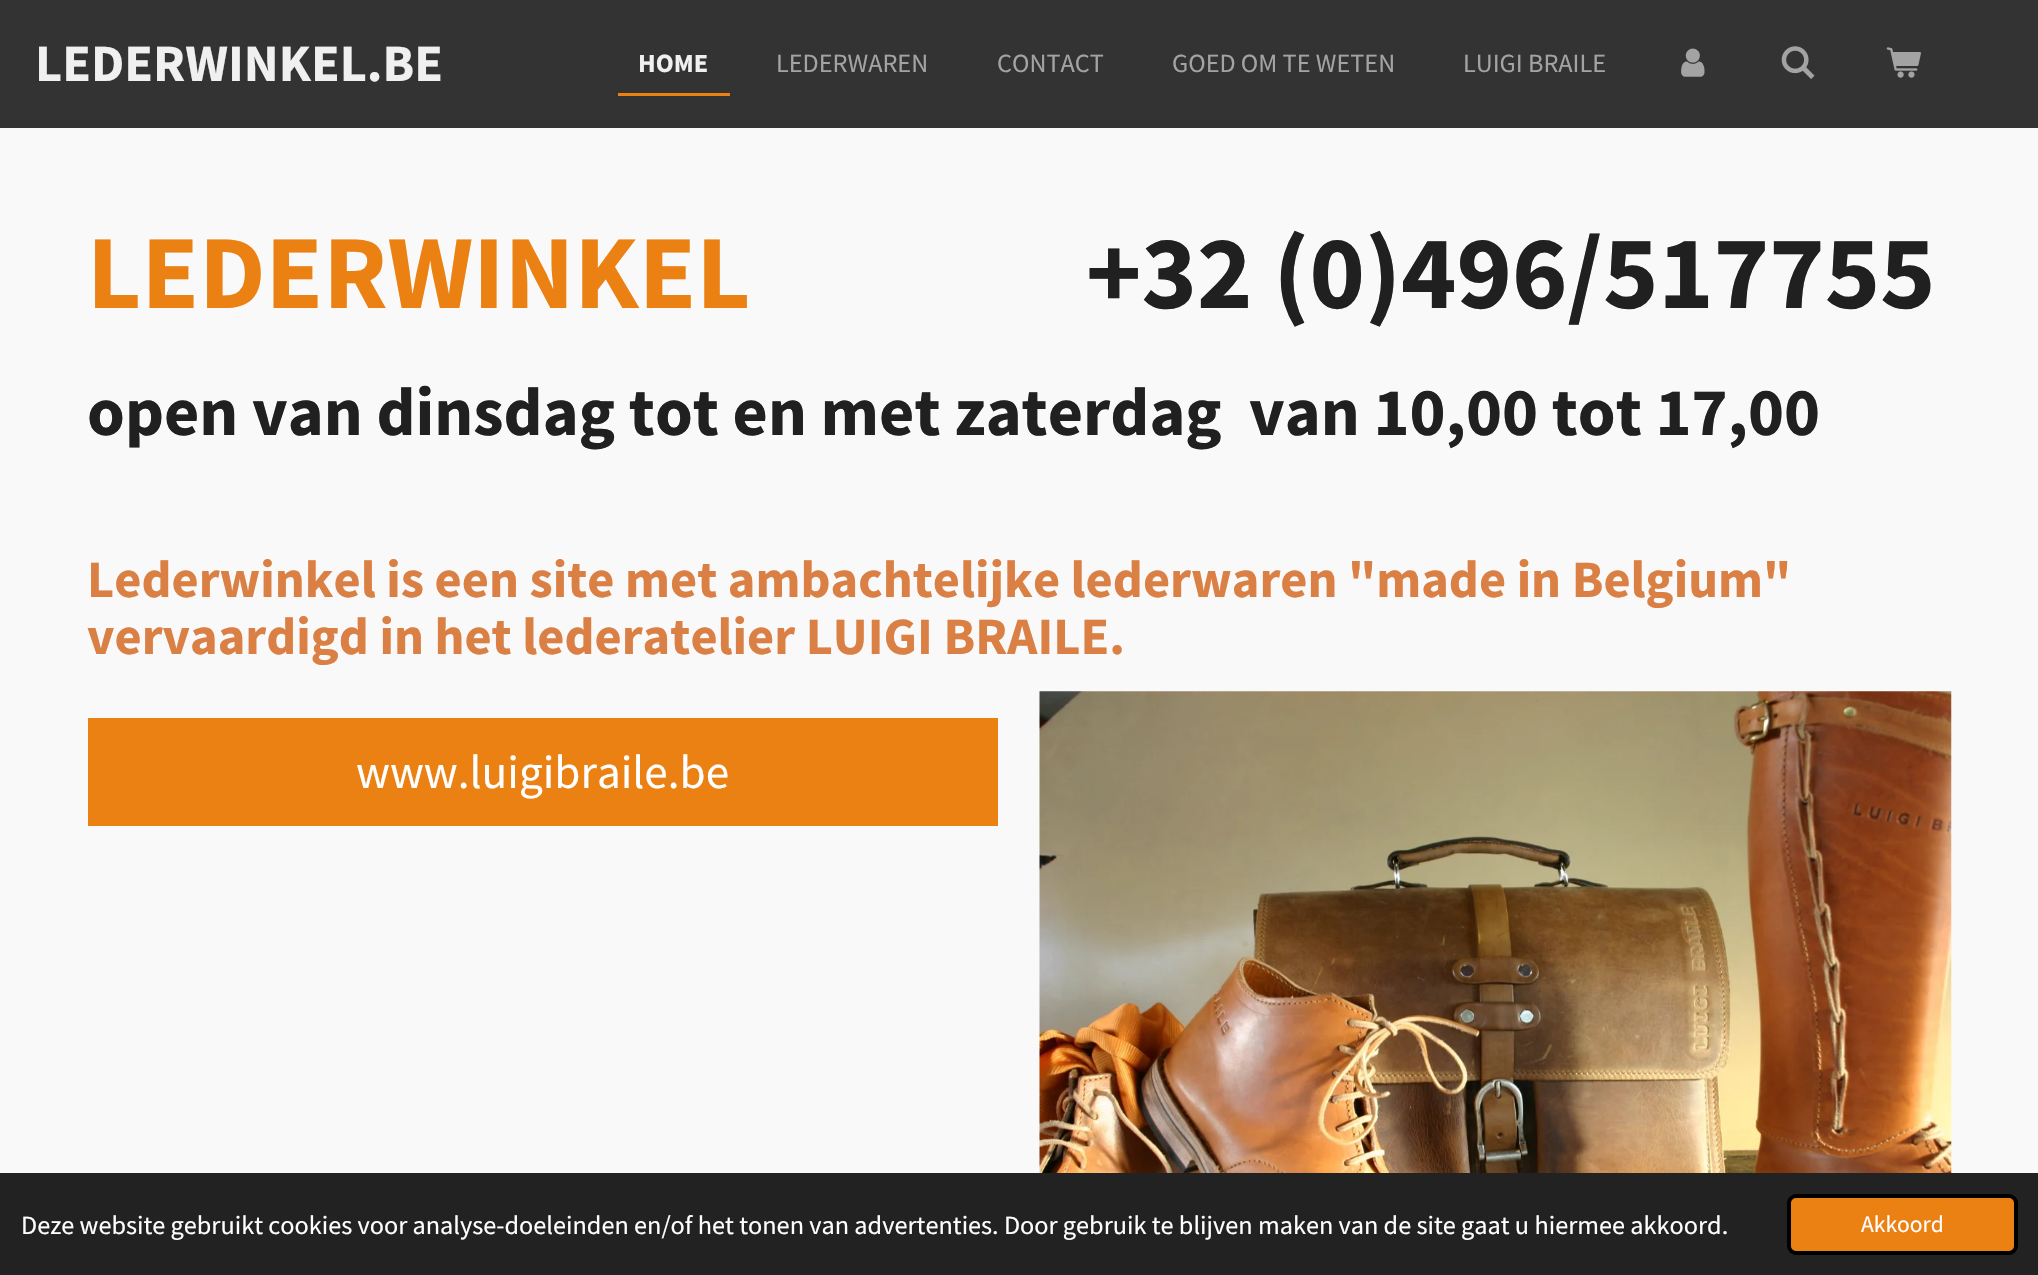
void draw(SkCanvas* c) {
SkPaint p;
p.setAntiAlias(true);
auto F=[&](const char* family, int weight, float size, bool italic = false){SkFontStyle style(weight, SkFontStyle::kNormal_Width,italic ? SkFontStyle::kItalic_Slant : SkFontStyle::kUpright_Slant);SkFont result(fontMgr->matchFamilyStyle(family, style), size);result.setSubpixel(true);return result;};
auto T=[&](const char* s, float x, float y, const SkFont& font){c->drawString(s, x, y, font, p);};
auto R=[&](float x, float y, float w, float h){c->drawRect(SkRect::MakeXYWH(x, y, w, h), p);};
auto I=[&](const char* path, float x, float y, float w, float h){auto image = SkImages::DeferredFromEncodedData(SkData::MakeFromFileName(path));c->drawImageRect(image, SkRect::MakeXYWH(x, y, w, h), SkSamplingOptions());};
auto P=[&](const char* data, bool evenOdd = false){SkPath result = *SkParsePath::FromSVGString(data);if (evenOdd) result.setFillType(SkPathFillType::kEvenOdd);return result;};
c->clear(0xff333333);
auto f1 = F("Source Sans Pro",700,52.5);
p.setColor(0xfff0f0f0);
T("LEDERWINKEL.BE",35,81,f1);
p.setColor(0xffeb8113);
c->drawPath(P("M618 93v3h112v-57v54z"),p);
auto f2 = F("Source Sans Pro",700,26.25);
p.setColor(0xfff0f0f0);
T("HOME",638,72,f2);
auto f3 = F("Source Sans Pro",400,26.25);
p.setColor(0xffa3a3a3);
T("LEDERWAREN",776,72,f3);
T("CONTACT",997,72,f3);
T("GOED OM TE WETEN",1172,72,f3);
T("LUIGI BRAILE",1463,72,f3);
I("1.png",1681,48,24,29);
I("2.png",1781,46,34,33);
I("3.png",1886,47,35,31);
p.setColor(0xfff9f9f9);
R(0,128,2038,1045);
auto f4 = F("Source Sans Pro",700,105);
p.setColor(0xffeb8113);
T("LEDERWINKEL",87,308,f4);
p.setColor(0xff202020);
T("+32 (0)496/517755",1086,308,f4);
auto f5 = F("Source Sans Pro",700,68.25);
T("open van dinsdag tot en met zaterdag  van 10,00 tot 17,00",87,435,f5);
p.setColor(0xffda8044);
T("Lederwinkel is een site met ambachtelijke lederwaren \"made in Belgium\"",87,597,f1);
T("vervaardigd in het lederatelier LUIGI BRAILE.",87,654,f1);
p.setColor(0xffeb8113);
R(88,718,910,108);
auto f6 = F("Source Sans Pro",400,47.25);
p.setColor(0xffffffff);
T("www.luigibraile.be",356,788,f6);
I("4.png",1039,691,913,482);
p.setColor(0xff222222);
R(0,1173,2038,102);
p.setColor(0xffffffff);
T("Deze website gebruikt cookies voor analyse-doeleinden en/of het tonen van advertenties. Door gebruik te blijven maken van de site gaat u hiermee akkoord.",21,1234,f3);
p.setColor(0xffeb8113);
c->drawRoundRect(SkRect::MakeXYWH(1789,1196,227,57),7,7,p);
p.setStroke(true);
p.setStrokeWidth(4);
p.setColor(0xff000000);
c->drawRoundRect(SkRect::MakeXYWH(1789,1196,227,57),7,7,p);
auto f7 = F("Source Sans Pro",400,23.5);
p.setStroke(false);
p.setColor(0xffffffff);
T("Akkoord",1861,1232,f7);
}
